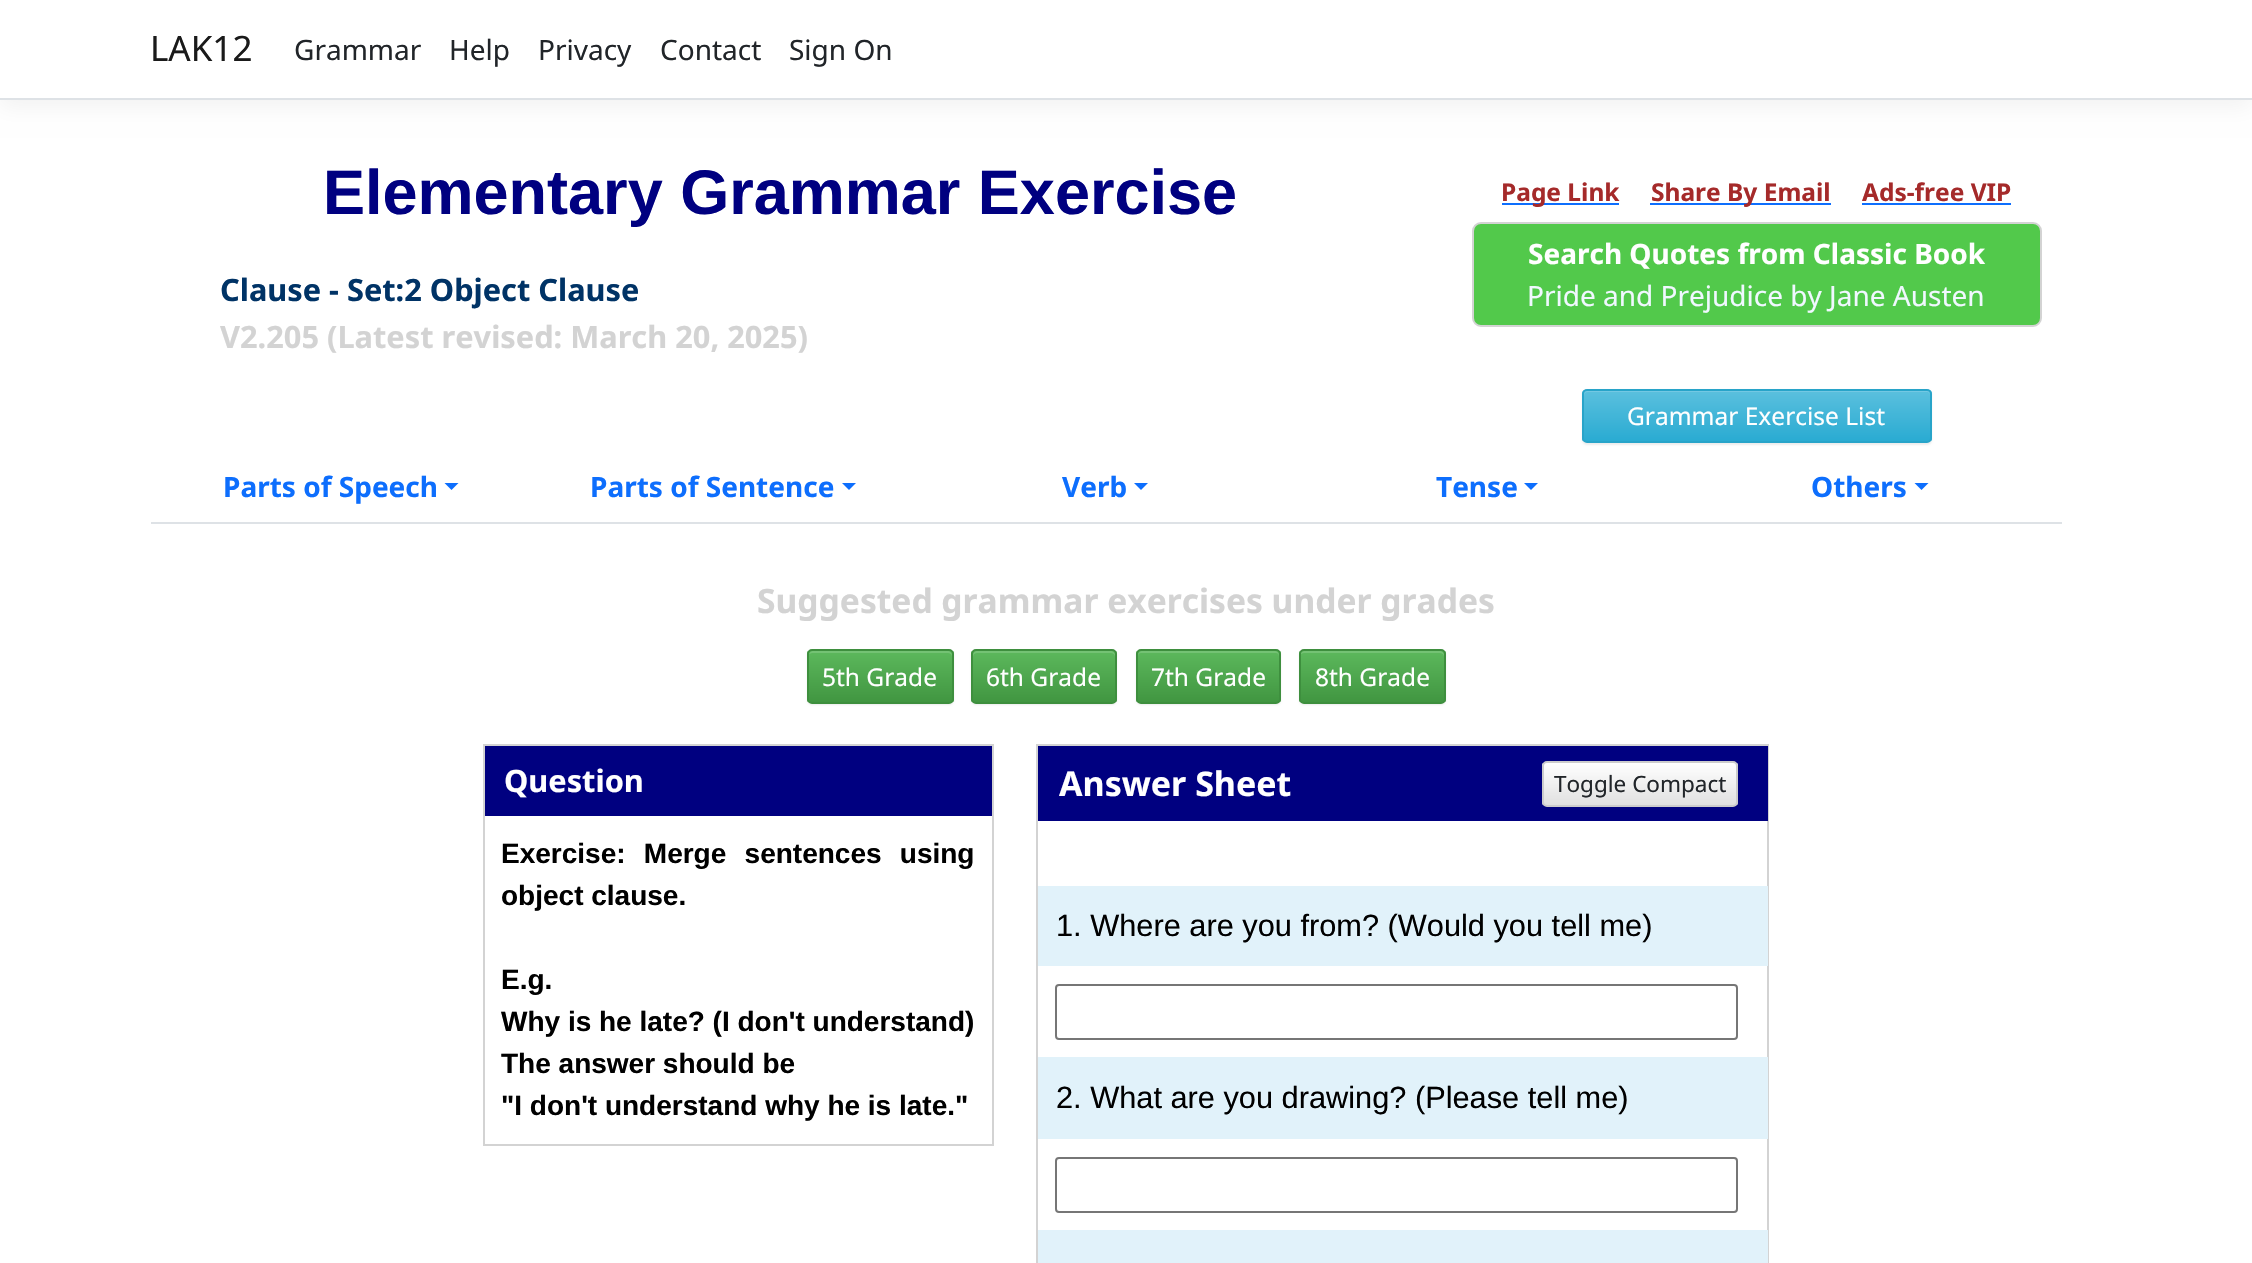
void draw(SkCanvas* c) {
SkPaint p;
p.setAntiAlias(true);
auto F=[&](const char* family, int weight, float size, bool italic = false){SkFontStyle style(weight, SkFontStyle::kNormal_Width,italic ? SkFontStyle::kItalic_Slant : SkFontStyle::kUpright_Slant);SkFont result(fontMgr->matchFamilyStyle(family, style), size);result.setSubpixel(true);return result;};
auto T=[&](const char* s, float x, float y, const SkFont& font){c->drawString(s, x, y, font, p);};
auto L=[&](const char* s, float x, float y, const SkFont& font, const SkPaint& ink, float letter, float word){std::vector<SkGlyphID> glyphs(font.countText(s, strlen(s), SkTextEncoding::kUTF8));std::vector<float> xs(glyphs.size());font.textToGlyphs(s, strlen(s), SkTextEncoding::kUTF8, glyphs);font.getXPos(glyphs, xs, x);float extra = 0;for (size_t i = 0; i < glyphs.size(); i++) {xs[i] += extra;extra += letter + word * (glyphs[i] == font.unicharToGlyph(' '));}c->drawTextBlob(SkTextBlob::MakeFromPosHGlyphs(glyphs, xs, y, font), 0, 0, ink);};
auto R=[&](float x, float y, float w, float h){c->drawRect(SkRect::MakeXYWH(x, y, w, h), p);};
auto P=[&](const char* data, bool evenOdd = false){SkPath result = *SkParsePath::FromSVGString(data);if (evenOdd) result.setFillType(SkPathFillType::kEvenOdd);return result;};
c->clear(0xffffffff);
p.setColor(0x0d000000);
p.setMaskFilter(SkMaskFilter::MakeBlur(kNormal_SkBlurStyle, 10.5));
c->drawRect(SkRect::MakeXYWH(0,7,2252,100),p);
p.setMaskFilter(nullptr);
p.setColor(0xffffffff);
R(0,0,2252,98);
p.setColor(0xffdee2e6);
R(0,98,2252,2);
auto f1 = F("Noto Sans",400,35);
p.setColor(0xff1a1a1a);
T("LAK12",150,61,f1);
auto f2 = F("Noto Sans",400,28);
p.setColor(0xff212529);
T("Grammar",294,60,f2);
T("Help",449,60,f2);
T("Privacy",538,60,f2);
T("Contact",660,60,f2);
T("Sign On",789,60,f2);
auto f3 = F("Liberation Sans",700,63);
p.setColor(0xff000080);
T("Elementary Grammar Exercise",323,214,f3);
auto f4 = F("Noto Sans",700,30.75);
p.setColor(0xff003366);
T("Clause - Set:2 Object Clause",220,301,f4);
p.setColor(0xffd3d3d3);
T("V2.205 (Latest revised: March 20, 2025)",220,348,f4);
p.setColor(0xff0d6efd);
R(1502,203,117,2);
auto f5 = F("Noto Sans",700,24.5);
p.setColor(0xffa52a2a);
T("Page Link",1501,201,f5);
p.setColor(0xff0d6efd);
R(1650,203,181,2);
p.setColor(0xffa52a2a);
T("Share By Email",1651,201,f5);
T("Ads-free VIP",1862,201,f5);
p.setColor(0xff0d6efd);
R(1862,203,149,2);
p.setColor(0xff52c94b);
c->drawRoundRect(SkRect::MakeXYWH(1473,223,568,103),8,8,p);
p.setStroke(true);
p.setStrokeWidth(2);
p.setColor(0xffd3d3d3);
c->drawRoundRect(SkRect::MakeXYWH(1473,223,568,103),8,8,p);
auto f6 = F("Noto Sans",700,28);
p.setStroke(false);
p.setColor(0xffffffff);
T("Search Quotes from Classic Book",1528,264,f6);
p.setColor(0xfff0f8ff);
T("Pride and Prejudice by Jane Austen",1527,306,f2);
p.setColor(0x12000000);
p.setMaskFilter(SkMaskFilter::MakeBlur(kNormal_SkBlurStyle, 1));
c->drawRoundRect(SkRect::MakeXYWH(1582,390,350,55),5,5,p);
p.setMaskFilter(nullptr);
c->save();
c->clipPath(P("M1587 389h340c3 0 5 2 5 5v44c0 3-2 5-5 5h-340c-3 0-5-2-5-5v-44c0-3 2-5 5-5z"),true);
{
const SkColor colors[] = {0xff5bc0de,0xff2aabd2};
const float stops[] = {0,1};
const SkPoint ends[] = {{1757,390}, {1757,441}};
p.setShader(SkGradientShader::MakeLinear(ends, colors, stops, 2, SkTileMode::kClamp));
p.setAlpha(255);
}
R(1582,390,350,51);
c->restore();
p.setShader(nullptr);
p.setColor(0x26ffffff);
c->drawPath(P("M1588 392h340l2 2v2c0-3 0-6-4-6h-340c-2 1-2 4-2 6c0-2 1-4 4-4z"),p);
p.setStroke(true);
p.setColor(0xff28a4c9);
c->drawRoundRect(SkRect::MakeXYWH(1583,390,348,52),4,4,p);
auto f7 = F("Noto Sans",400,24.5);
p.setStroke(false);
p.setColor(0xffffffff);
T("Grammar Exercise List",1627,425,f7);
p.setColor(0xffdee2e6);
R(151,522,1911,2);
p.setColor(0xff0d6efd);
T("Parts of Speech",223,497,f6);
c->drawPath(P("M444.5 483h14l-7 7z"),p);
T("Parts of Sentence",590,497,f6);
c->drawPath(P("M842 483h14l-7 7z"),p);
T("Verb",1062,497,f6);
c->drawPath(P("M1134 483h14l-7 7z"),p);
T("Tense",1436,497,f6);
c->drawPath(P("M1524 483h14l-7 7z"),p);
T("Others",1811,497,f6);
c->drawPath(P("M1914.5 483h14l-7 7z"),p);
auto f8 = F("Noto Sans",700,33.6);
p.setColor(0xffd3d3d3);
T("Suggested grammar exercises under grades",757,613,f8);
p.setColor(0x12000000);
p.setMaskFilter(SkMaskFilter::MakeBlur(kNormal_SkBlurStyle, 1));
c->drawRoundRect(SkRect::MakeXYWH(807,651,147,54),5,5,p);
p.setMaskFilter(nullptr);
c->save();
c->clipPath(P("M812 649h137c3 0 5 2 5 5v45c0 3-2 5-5 5h-137c-3 0-5-2-5-5v-45c0-3 2-5 5-5z"),true);
{
const SkColor colors[] = {0xff5cb85c,0xff419641};
const float stops[] = {0,1};
const SkPoint ends[] = {{880,651}, {880,702}};
p.setShader(SkGradientShader::MakeLinear(ends, colors, stops, 2, SkTileMode::kClamp));
p.setAlpha(255);
}
R(807,651,147,51);
c->restore();
p.setShader(nullptr);
p.setColor(0xff74c274);
c->drawPath(P("M812 653h136c2 0 4 1 4 4v-2c0-2-2-4-4-4h-135c-2 0-3 1-4 3z"),p);
p.setStroke(true);
p.setColor(0xff3e8f3e);
c->drawRoundRect(SkRect::MakeXYWH(808,650,145,53),4,4,p);
p.setStroke(false);
p.setColor(0xffffffff);
T("5th Grade",822,686,f7);
p.setColor(0x12000000);
p.setMaskFilter(SkMaskFilter::MakeBlur(kNormal_SkBlurStyle, 1));
c->drawRoundRect(SkRect::MakeXYWH(971,651,146,54),5,5,p);
p.setMaskFilter(nullptr);
c->save();
c->clipPath(P("M976 649h136c3 0 5 2 5 5v45c0 3-2 5-5 5h-136c-3 0-5-2-5-5v-45c0-3 2-5 5-5z"),true);
{
const SkColor colors[] = {0xff5cb85c,0xff419641};
const float stops[] = {0,1};
const SkPoint ends[] = {{1044,651}, {1044,702}};
p.setShader(SkGradientShader::MakeLinear(ends, colors, stops, 2, SkTileMode::kClamp));
p.setAlpha(255);
}
R(971,651,146,51);
c->restore();
p.setShader(nullptr);
p.setColor(0xff74c274);
c->drawPath(P("M977 653h134c2 0 4 1 4 4v-2c0-2-2-4-4-4h-134c-2 0-4 2-4 4v2c0-3 2-4 4-4z"),p);
p.setStroke(true);
p.setColor(0xff3e8f3e);
c->drawRoundRect(SkRect::MakeXYWH(972,650,144,53),4,4,p);
p.setStroke(false);
p.setColor(0xffffffff);
T("6th Grade",986,686,f7);
p.setColor(0x12000000);
p.setMaskFilter(SkMaskFilter::MakeBlur(kNormal_SkBlurStyle, 1));
c->drawRoundRect(SkRect::MakeXYWH(1136,651,145,54),5,5,p);
p.setMaskFilter(nullptr);
c->save();
c->clipPath(P("M1141 649h135c3 0 5 2 5 5v45c0 3-2 5-5 5h-135c-3 0-5-2-5-5v-45c0-3 2-5 5-5z"),true);
{
const SkColor colors[] = {0xff5cb85c,0xff419641};
const float stops[] = {0,1};
const SkPoint ends[] = {{1208,651}, {1208,702}};
p.setShader(SkGradientShader::MakeLinear(ends, colors, stops, 2, SkTileMode::kClamp));
p.setAlpha(255);
}
R(1136,651,145,51);
c->restore();
p.setShader(nullptr);
p.setColor(0xff74c274);
c->drawPath(P("M1141 653h134c3 0 4 1 4 4v-2c0-2-2-4-4-4h-133c-2 0-4 2-4 4v2c0-3 1-4 3-4z"),p);
p.setStroke(true);
p.setColor(0xff3e8f3e);
c->drawRoundRect(SkRect::MakeXYWH(1137,650,143,53),4,4,p);
p.setStroke(false);
p.setColor(0xffffffff);
T("7th Grade",1151,686,f7);
p.setColor(0x12000000);
p.setMaskFilter(SkMaskFilter::MakeBlur(kNormal_SkBlurStyle, 1));
c->drawRoundRect(SkRect::MakeXYWH(1299,651,147,54),5,5,p);
p.setMaskFilter(nullptr);
c->save();
c->clipPath(P("M1304 649h137c3 0 5 2 5 5v45c0 3-2 5-5 5h-137c-3 0-5-2-5-5v-45c0-3 2-5 5-5z"),true);
{
const SkColor colors[] = {0xff5cb85c,0xff419641};
const float stops[] = {0,1};
const SkPoint ends[] = {{1372,651}, {1372,702}};
p.setShader(SkGradientShader::MakeLinear(ends, colors, stops, 2, SkTileMode::kClamp));
p.setAlpha(255);
}
R(1299,651,147,51);
c->restore();
p.setShader(nullptr);
p.setColor(0xff74c274);
c->drawPath(P("M1304 653h136c2 0 4 1 4 4v-2c0-2-2-4-4-4h-136c-2 0-4 2-4 4v2c0-3 2-4 4-4z"),p);
p.setStroke(true);
p.setColor(0xff3e8f3e);
c->drawRoundRect(SkRect::MakeXYWH(1300,650,145,53),4,4,p);
p.setStroke(false);
p.setColor(0xffffffff);
T("8th Grade",1315,686,f7);
p.setStroke(true);
p.setColor(0xffd3d3d3);
c->drawRect(SkRect::MakeXYWH(484,745,509,400),p);
p.setStroke(false);
p.setColor(0xff000080);
R(485,746,507,70);
p.setColor(0xffffffff);
T("Question",504,792,f4);
auto f9 = F("Liberation Sans",700,28);
p.setColor(0xff000000);
L("Exercise: Merge sentences using",501,863,f9,p,0,10.5);
T("object clause.",501,905,f9);
T("E.g.",501,989,f9);
T("Why is he late? (I don't understand)",501,1031,f9);
T("The answer should be",501,1073,f9);
T("\"I don't understand why he is late.\"",501,1115,f9);
p.setStroke(true);
p.setColor(0xffd3d3d3);
c->drawRect(SkRect::MakeXYWH(1037,745,731,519),p);
p.setStroke(false);
p.setColor(0xff000080);
R(1038,746,730,75);
auto f10 = F("Noto Sans",700,34);
p.setColor(0xffffffff);
T("Answer Sheet",1059,796,f10);
c->save();
c->clipPath(P("M1547 761h186c3 0 5 2 5 5v36c0 3-2 5-5 5h-186c-3 0-5-2-5-5v-36c0-3 2-5 5-5z"),true);
{
const SkColor colors[] = {0xffffffff,0xffe0e0e0};
const float stops[] = {0,1};
const SkPoint ends[] = {{1640,763}, {1640,805}};
p.setShader(SkGradientShader::MakeLinear(ends, colors, stops, 2, SkTileMode::kClamp));
p.setAlpha(255);
}
R(1542,763,196,42);
c->restore();
p.setStroke(true);
p.setShader(nullptr);
p.setColor(0xffcccccc);
c->drawRoundRect(SkRect::MakeXYWH(1543,762,194,44),4,4,p);
auto f11 = F("Noto Sans",400,22.5);
p.setStroke(false);
p.setColor(0xff212529);
T("Toggle Compact",1554,792,f11);
p.setColor(0xffe1f2fa);
R(1038,886,730,80);
auto f12 = F("Liberation Sans",400,30.75);
p.setColor(0xff000000);
T("1. Where are you from? (Would you tell me)",1056,936,f12);
p.setStroke(true);
p.setColor(0xff767676);
c->drawRoundRect(SkRect::MakeXYWH(1056,985,681,54),3,3,p);
p.setStroke(false);
p.setColor(0xffe1f2fa);
R(1038,1057,730,82);
p.setColor(0xff000000);
T("2. What are you drawing? (Please tell me)",1056,1108,f12);
p.setStroke(true);
p.setColor(0xff767676);
c->drawRoundRect(SkRect::MakeXYWH(1056,1158,681,54),3,3,p);
p.setStroke(false);
p.setColor(0xffe1f2fa);
R(1038,1230,730,33);
}
